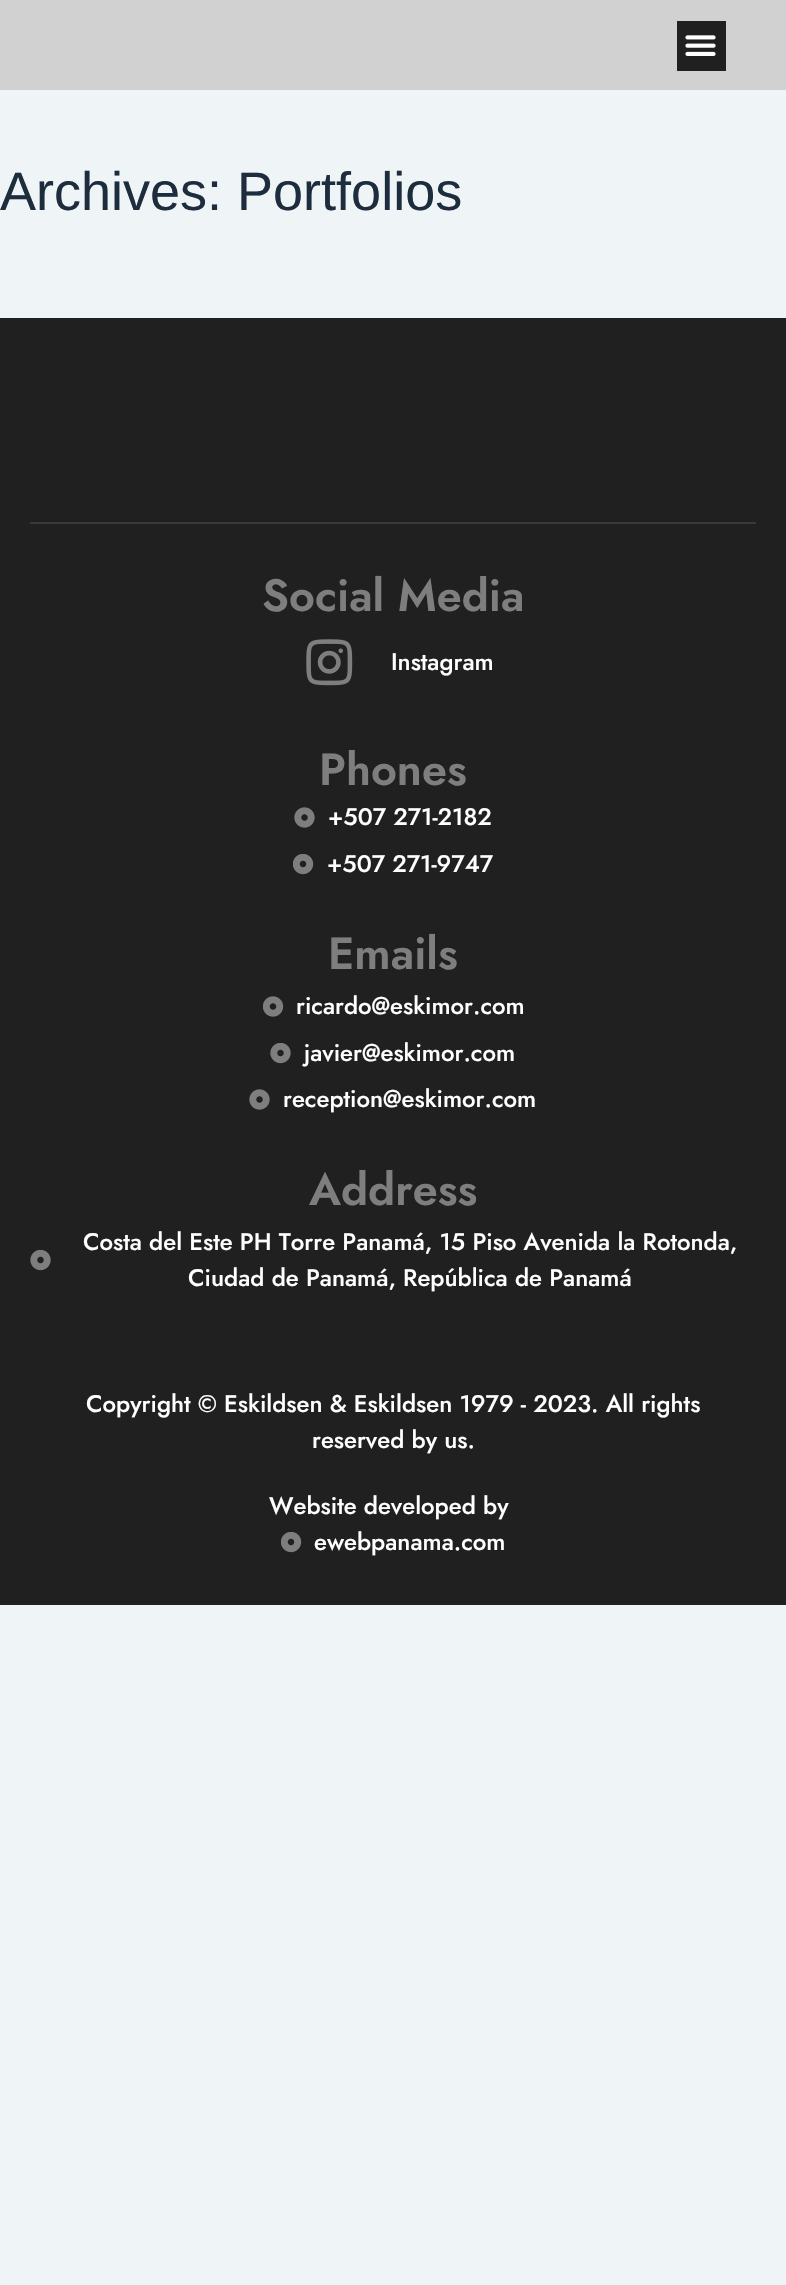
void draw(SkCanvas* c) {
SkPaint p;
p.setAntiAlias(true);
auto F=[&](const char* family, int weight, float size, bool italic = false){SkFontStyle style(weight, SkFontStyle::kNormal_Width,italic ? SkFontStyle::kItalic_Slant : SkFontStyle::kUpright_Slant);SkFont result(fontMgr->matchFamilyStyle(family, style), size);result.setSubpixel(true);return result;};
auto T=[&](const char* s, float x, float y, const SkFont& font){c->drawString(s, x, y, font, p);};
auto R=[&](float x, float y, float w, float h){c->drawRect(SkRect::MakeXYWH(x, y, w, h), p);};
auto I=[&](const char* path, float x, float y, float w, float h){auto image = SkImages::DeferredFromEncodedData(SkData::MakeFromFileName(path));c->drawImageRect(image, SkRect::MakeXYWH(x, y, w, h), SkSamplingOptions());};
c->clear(0xffeff4f6);
p.setColor(0xffd1d1d1);
R(0,0,786,90);
p.setColor(0xff202020);
R(677,21,49,50);
I("1.png",685,35,31,21);
auto f1 = F("Liberation Sans",400,54);
p.setColor(0xff1d2d3e);
T("Archives: Portfolios",0,210,f1);
p.setColor(0xff202020);
R(0,318,786,1287);
p.setColor(0xff393939);
R(30,522,726,2);
auto f2 = F("Jost",600,45);
p.setColor(0xff7e7e7e);
T("Social Media",262,611,f2);
I("2.png",306,639,47,47);
auto f3 = F("Jost",500,24);
p.setColor(0xffffffff);
T("Instagram",391,670,f3);
p.setColor(0xff7e7e7e);
T("Phones",319,785,f2);
I("3.png",294,807,21,21);
p.setColor(0xffffffff);
T("+507 271-2182",328,825,f3);
I("4.png",293,854,21,21);
T("+507 271-9747",327,872,f3);
p.setColor(0xff7e7e7e);
T("Emails",328,969,f2);
I("5.png",263,996,21,21);
p.setColor(0xffffffff);
T("ricardo@eskimor.com",296,1014,f3);
I("6.png",270,1043,21,21);
T("javier@eskimor.com",304,1061,f3);
I("3.png",249,1089,21,21);
T("reception@eskimor.com",283,1107,f3);
p.setColor(0xff7e7e7e);
T("Address",309,1205,f2);
I("6.png",30,1250,21,21);
p.setColor(0xffffffff);
T("Costa del Este PH Torre Panamá, 15 Piso Avenida la Rotonda,",83,1250,f3);
T("Ciudad de Panamá, República de Panamá",188,1286,f3);
T("Copyright © Eskildsen & Eskildsen 1979 - 2023. All rights",86,1412,f3);
T("reserved by us.",312,1448,f3);
T("Website developed by",269,1514,f3);
I("4.png",281,1532,21,21);
T("ewebpanama.com",314,1550,f3);
}
